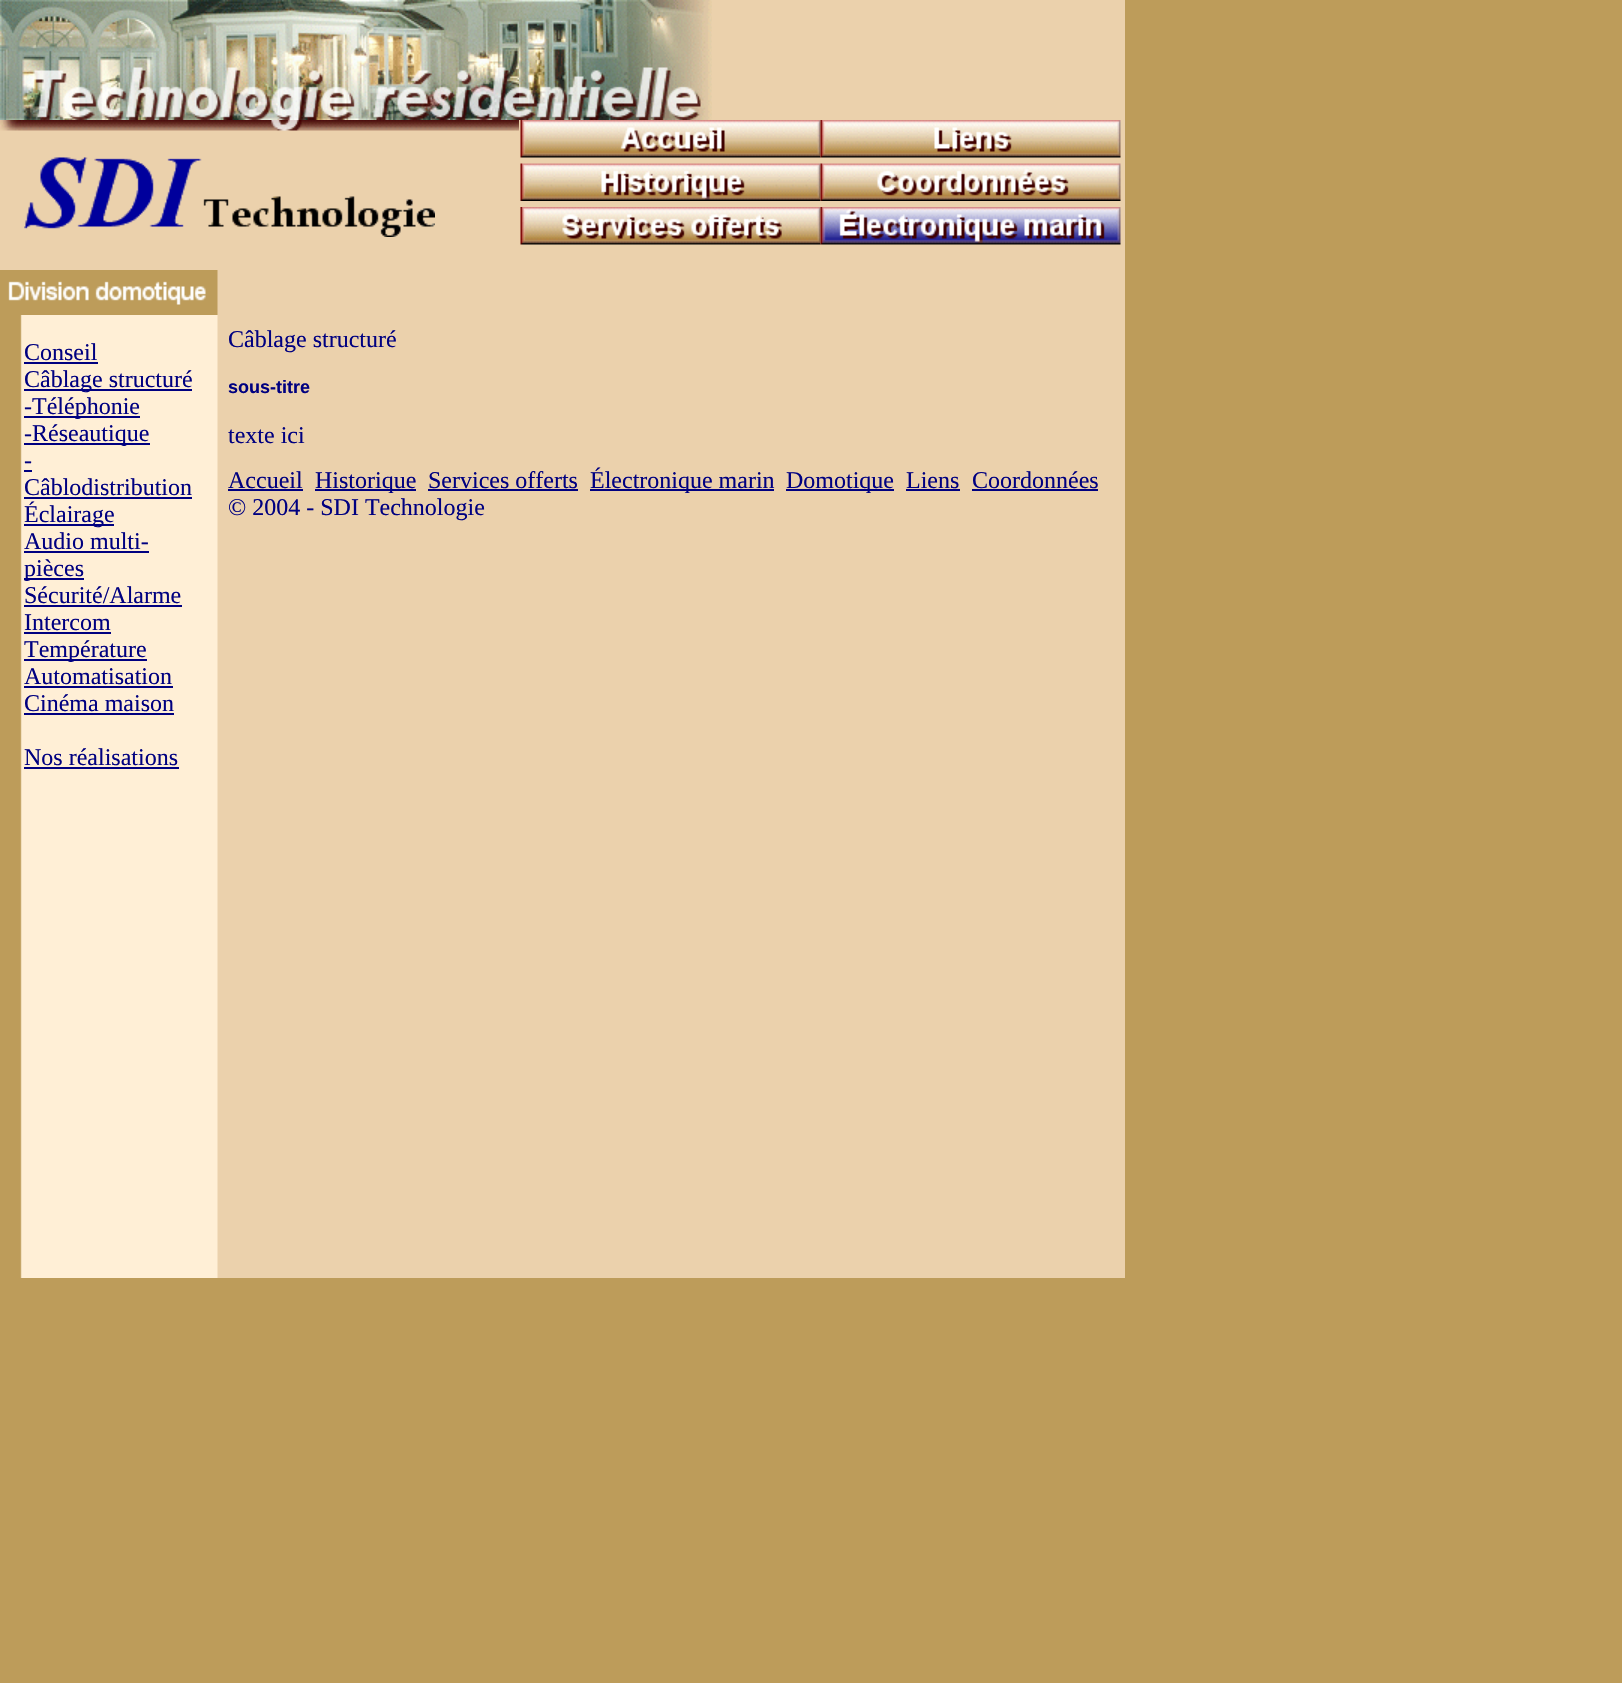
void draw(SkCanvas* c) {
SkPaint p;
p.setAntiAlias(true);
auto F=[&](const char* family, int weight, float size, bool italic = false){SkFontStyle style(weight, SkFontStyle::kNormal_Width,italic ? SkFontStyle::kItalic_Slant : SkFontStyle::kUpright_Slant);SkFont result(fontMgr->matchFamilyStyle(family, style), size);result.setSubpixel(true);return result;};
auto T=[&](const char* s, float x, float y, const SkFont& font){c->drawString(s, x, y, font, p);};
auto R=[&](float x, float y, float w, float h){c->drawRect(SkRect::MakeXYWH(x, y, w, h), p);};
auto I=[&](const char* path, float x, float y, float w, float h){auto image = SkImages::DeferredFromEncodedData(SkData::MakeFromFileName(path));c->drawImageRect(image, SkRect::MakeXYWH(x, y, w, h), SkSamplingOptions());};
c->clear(0xffbd9c5a);
p.setColor(0xffebd1ac);
R(712,0,413,120);
I("1.png",0,0,519,120);
I("2.png",519,0,193,120);
R(0,120,1125,150);
I("3.png",0,120,519,11);
I("4.png",24,157,411,80);
I("5.png",520,120,301,38);
I("6.png",520,163,301,38);
I("7.png",520,207,301,38);
I("8.png",820,120,301,38);
I("9.png",820,163,301,38);
I("10.png",820,207,301,38);
R(217,270,908,1008);
I("11.png",0,270,218,45);
I("12.png",0,315,218,963);
auto f1 = F("Liberation Serif",400,24);
p.setColor(0xff000080);
T("Conseil",24,360,f1);
R(24,362,74,2);
R(24,389,168,2);
T("Câblage structuré",24,387,f1);
R(24,416,116,2);
T("-Téléphonie",24,414,f1);
R(24,443,126,2);
T("-Réseautique",24,441,f1);
T("-",24,468,f1);
R(24,470,8,2);
T("Câblodistribution",24,495,f1);
R(24,497,168,2);
R(24,524,90,2);
T("Éclairage",24,522,f1);
T("Audio multi-",24,549,f1);
R(24,551,125,2);
R(24,578,60,2);
T("pièces",24,576,f1);
T("Sécurité/Alarme",24,603,f1);
R(24,605,158,2);
T("Intercom",24,630,f1);
R(24,632,87,2);
R(24,659,123,2);
T("Température",24,657,f1);
T("Automatisation",24,684,f1);
R(24,686,149,2);
T("Cinéma maison",24,711,f1);
R(24,713,150,2);
T("Nos réalisations",24,765,f1);
R(24,767,155,2);
T("Câblage structuré",228,347,f1);
auto f2 = F("Liberation Sans",700,18);
T("sous-titre",228,393,f2);
T("texte ici",228,443,f1);
T("Accueil",228,488,f1);
R(228,489,75,2);
R(315,489,101,2);
T("Historique",315,488,f1);
T("Services offerts",428,488,f1);
R(428,489,150,2);
R(590,489,184,2);
T("Électronique marin",590,488,f1);
R(786,489,108,2);
T("Domotique",786,488,f1);
T("Liens",906,488,f1);
R(906,489,54,2);
T("Coordonnées",972,488,f1);
R(972,489,126,2);
T("© 2004 - SDI Technologie",228,515,f1);
}
